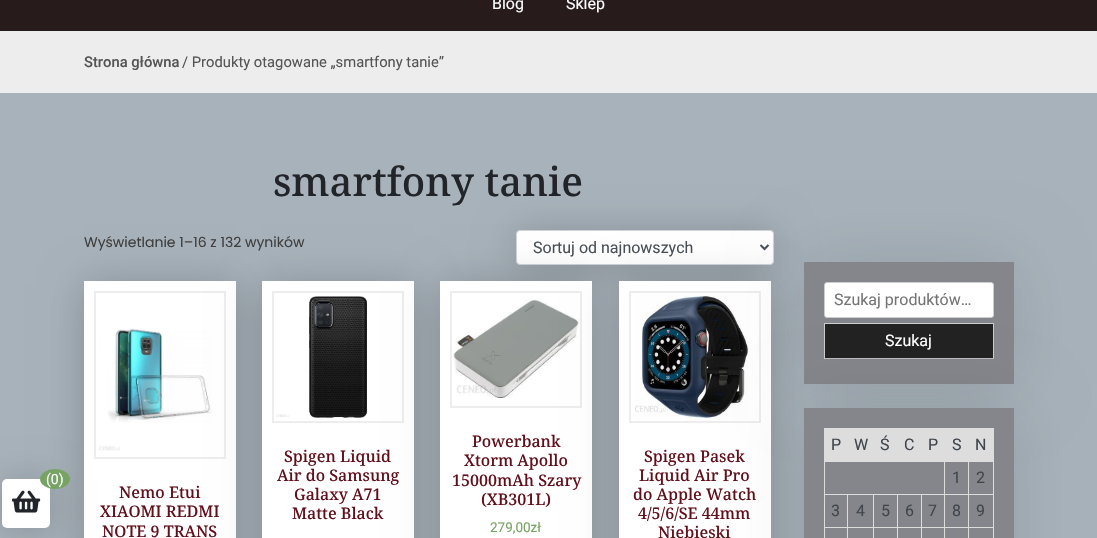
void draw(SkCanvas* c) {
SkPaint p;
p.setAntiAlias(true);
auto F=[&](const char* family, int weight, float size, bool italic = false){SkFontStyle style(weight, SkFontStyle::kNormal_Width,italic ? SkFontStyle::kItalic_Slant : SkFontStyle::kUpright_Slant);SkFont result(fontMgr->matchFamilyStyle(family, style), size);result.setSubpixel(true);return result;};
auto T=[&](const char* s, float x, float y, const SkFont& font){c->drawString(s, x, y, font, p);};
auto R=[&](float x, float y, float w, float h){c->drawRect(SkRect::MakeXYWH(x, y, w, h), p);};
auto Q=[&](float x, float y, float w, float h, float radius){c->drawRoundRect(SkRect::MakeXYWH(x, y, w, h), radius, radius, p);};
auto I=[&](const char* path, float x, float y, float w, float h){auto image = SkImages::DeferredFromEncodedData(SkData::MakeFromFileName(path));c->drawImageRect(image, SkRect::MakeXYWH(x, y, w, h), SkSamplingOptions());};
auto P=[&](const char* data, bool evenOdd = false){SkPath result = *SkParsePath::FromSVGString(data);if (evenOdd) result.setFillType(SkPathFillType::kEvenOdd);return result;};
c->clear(0xffa8b2ba);
p.setColor(0x33000000);
p.setMaskFilter(SkMaskFilter::MakeBlur(kNormal_SkBlurStyle, 20));
c->drawRect(SkRect::MakeXYWH(84,284,152,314),p);
p.setMaskFilter(nullptr);
p.setColor(0xffffffff);
R(84,281,152,257);
p.setStroke(true);
p.setStrokeWidth(2);
p.setColor(0xffededed);
c->drawRect(SkRect::MakeXYWH(95,292,130,166),p);
I("2.png",99,329,113,122);
p.setStroke(false);
p.setColor(0x33000000);
p.setMaskFilter(SkMaskFilter::MakeBlur(kNormal_SkBlurStyle, 20));
c->drawRoundRect(SkRect::MakeXYWH(2,482,48,49),5,5,p);
p.setMaskFilter(nullptr);
p.setColor(0xffffffff);
Q(2,479,48,49,5);
p.setColor(0xff77a464);
c->drawOval(SkRect::MakeXYWH(40,469,30,20),p);
auto f1 = F("Roboto",400,14);
p.setColor(0xffffffff);
T("(0)",46,484,f1);
I("1.png",12,490,29,23);
p.setColor(0xff271b1c);
R(0,0,1097,31);
auto f2 = F("Roboto",400,16);
p.setColor(0xffffffff);
T("Blog",492,9,f2);
T("Sklep",566,9,f2);
p.setColor(0xffededed);
R(0,31,1097,62);
auto f3 = F("Roboto",500,14.75);
p.setColor(0xff555555);
T("Strona główna",84,67,f3);
auto f4 = F("Roboto",400,14.75);
T("/ Produkty otagowane „smartfony tanie”",182,67,f4);
p.setColor(0x33000000);
p.setMaskFilter(SkMaskFilter::MakeBlur(kNormal_SkBlurStyle, 20));
c->drawRoundRect(SkRect::MakeXYWH(516,233,258,35),4,4,p);
p.setMaskFilter(nullptr);
auto f5 = F("Noto Serif",500,40);
p.setColor(0xff212529);
T("smartfony tanie",273,196,f5);
auto f6 = F("Poppins",400,14);
p.setColor(0xff3f3f3f);
T("Wyświetlanie 1–16 z 132 wyników",84,247,f6);
p.setColor(0xffffffff);
c->drawRoundRect(SkRect::MakeXYWH(516.5,230.5,257,34),3.5,3.5,p);
p.setStroke(true);
p.setStrokeWidth(1);
p.setColor(0xffced4da);
c->drawRoundRect(SkRect::MakeXYWH(516.5,230.5,257,34),3.5,3.5,p);
p.setStrokeWidth(2);
p.setColor(0xff495057);
c->drawPath(P("M760.5 245l4 4l4-4"),p);
p.setStroke(false);
T("Sortuj od najnowszych",533,253,f2);
auto f7 = F("Noto Serif",500,16);
p.setColor(0xff610f1a);
T("Nemo Etui",119,498,f7);
T("XIAOMI REDMI",100,517,f7);
T("NOTE 9 TRANS",102,537,f7);
p.setColor(0x33000000);
p.setMaskFilter(SkMaskFilter::MakeBlur(kNormal_SkBlurStyle, 20));
c->drawRect(SkRect::MakeXYWH(262,284,152,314),p);
p.setMaskFilter(nullptr);
p.setColor(0xffffffff);
R(262,281,152,257);
p.setStroke(true);
p.setColor(0xffededed);
c->drawRect(SkRect::MakeXYWH(273,292,130,130),p);
I("3.png",276,296,91,122);
p.setStroke(false);
p.setColor(0xff610f1a);
T("Spigen Liquid",284,462,f7);
T("Air do Samsung",277,481,f7);
T("Galaxy A71",294,500,f7);
T("Matte Black",292,519,f7);
p.setColor(0x33000000);
p.setMaskFilter(SkMaskFilter::MakeBlur(kNormal_SkBlurStyle, 20));
c->drawRect(SkRect::MakeXYWH(440,284,152,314),p);
p.setMaskFilter(nullptr);
p.setColor(0xffffffff);
R(440,281,152,257);
p.setStroke(true);
p.setColor(0xffededed);
c->drawRect(SkRect::MakeXYWH(451,292,130,115),p);
I("4.png",453,299,127,99);
p.setStroke(false);
p.setColor(0xff610f1a);
T("Powerbank",472,447,f7);
T("Xtorm Apollo",464,466,f7);
T("15000mAh Szary",452,486,f7);
T("(XB301L)",481,505,f7);
auto f8 = F("Roboto",400,13.5);
p.setColor(0xff77a464);
T("279,00zł",490,532,f8);
p.setColor(0x33000000);
p.setMaskFilter(SkMaskFilter::MakeBlur(kNormal_SkBlurStyle, 20));
c->drawRect(SkRect::MakeXYWH(619,284,152,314),p);
p.setMaskFilter(nullptr);
p.setColor(0xffffffff);
R(619,281,152,257);
p.setStroke(true);
p.setColor(0xffededed);
c->drawRect(SkRect::MakeXYWH(630,292,130,130),p);
I("5.png",635,293,114,128);
p.setStroke(false);
p.setColor(0xff610f1a);
T("Spigen Pasek",644,462,f7);
T("Liquid Air Pro",639,481,f7);
T("do Apple Watch",633,500,f7);
T("4/5/6/SE 44mm",638,519,f7);
T("Niebieski",658,538,f7);
p.setColor(0x1c000000);
p.setMaskFilter(SkMaskFilter::MakeBlur(kNormal_SkBlurStyle, 35));
c->drawRect(SkRect::MakeXYWH(804,262,210,122),p);
p.setMaskFilter(nullptr);
p.setColor(0xff85868b);
R(804,262,210,122);
p.setColor(0x1c000000);
p.setMaskFilter(SkMaskFilter::MakeBlur(kNormal_SkBlurStyle, 35));
c->drawRect(SkRect::MakeXYWH(804,408,210,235),p);
p.setMaskFilter(nullptr);
p.setColor(0xffffffff);
c->drawRoundRect(SkRect::MakeXYWH(824.5,282.5,169,35),2.5,2.5,p);
p.setStroke(true);
p.setStrokeWidth(1);
p.setColor(0xffcccccc);
c->drawRoundRect(SkRect::MakeXYWH(824.5,282.5,169,35),2.5,2.5,p);
p.setStroke(false);
p.setColor(0xff757575);
T("Szukaj produktów…",834,305,f2);
p.setColor(0xff222222);
R(825,324,168,34);
p.setColor(0xffcccccc);
R(824,323,170,1);
R(993,323,1,36);
p.setColor(0xffbbbbbb);
R(824,358,170,1);
p.setColor(0xffcccccc);
R(824,323,1,36);
p.setColor(0xffffffff);
T("Szukaj",885,346,f2);
p.setColor(0xff85868b);
R(804,408,210,130);
p.setColor(0xffdddddd);
R(824,428,145,33);
p.setColor(0xff40464d);
T("P",831,450,f2);
T("W",854,450,f2);
T("Ś",880,450,f2);
T("C",904,450,f2);
T("P",928,450,f2);
T("S",952,450,f2);
p.setColor(0xffdddddd);
R(969,429,24,32);
R(968,428,26,1);
R(968,461,26,1);
R(968,494,26,1);
R(968,527,26,1);
R(993,527,1,11);
R(993,494,1,34);
R(993,461,1,34);
R(993,428,1,34);
p.setColor(0xff40464d);
T("N",975,450,f2);
p.setColor(0xffdddddd);
R(968,527,1,11);
R(944,527,25,1);
R(968,494,1,34);
R(944,494,25,1);
R(968,461,1,34);
R(944,461,25,1);
R(944,527,1,11);
R(921,527,24,1);
R(944,494,1,34);
R(921,494,24,1);
R(944,461,1,34);
R(824,461,121,1);
R(921,527,1,11);
R(897,527,25,1);
R(921,494,1,34);
R(897,494,25,1);
R(897,527,1,11);
R(873,527,25,1);
R(897,494,1,34);
R(873,494,25,1);
R(873,527,1,11);
R(847,527,27,1);
R(873,494,1,34);
R(847,494,27,1);
R(847,527,1,11);
R(824,527,24,1);
R(847,494,1,34);
R(824,494,24,1);
R(824,527,1,11);
R(824,494,1,34);
R(824,461,1,34);
p.setColor(0xff40464d);
T("1",952,483,f2);
T("2",976,483,f2);
T("3",831,516,f2);
T("4",856,516,f2);
T("5",881,516,f2);
T("6",905,516,f2);
T("7",928,516,f2);
T("8",952,516,f2);
T("9",976,516,f2);
}
